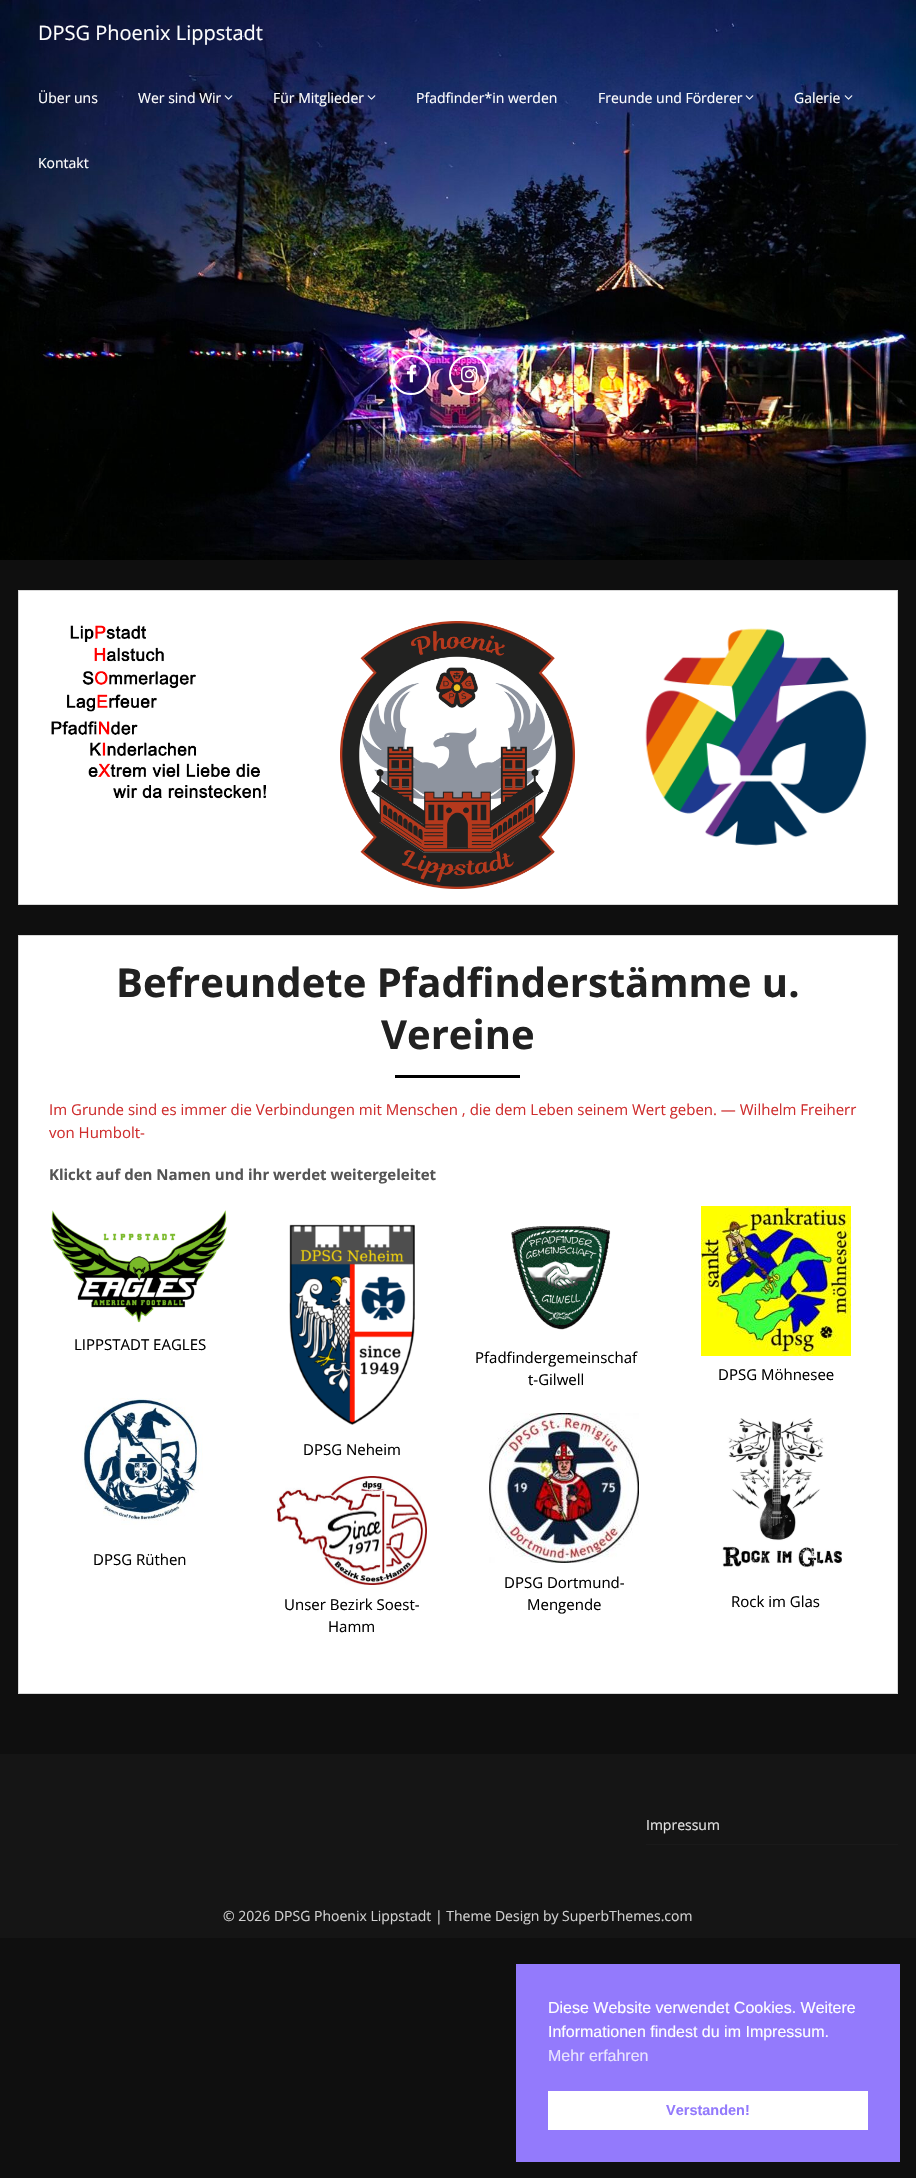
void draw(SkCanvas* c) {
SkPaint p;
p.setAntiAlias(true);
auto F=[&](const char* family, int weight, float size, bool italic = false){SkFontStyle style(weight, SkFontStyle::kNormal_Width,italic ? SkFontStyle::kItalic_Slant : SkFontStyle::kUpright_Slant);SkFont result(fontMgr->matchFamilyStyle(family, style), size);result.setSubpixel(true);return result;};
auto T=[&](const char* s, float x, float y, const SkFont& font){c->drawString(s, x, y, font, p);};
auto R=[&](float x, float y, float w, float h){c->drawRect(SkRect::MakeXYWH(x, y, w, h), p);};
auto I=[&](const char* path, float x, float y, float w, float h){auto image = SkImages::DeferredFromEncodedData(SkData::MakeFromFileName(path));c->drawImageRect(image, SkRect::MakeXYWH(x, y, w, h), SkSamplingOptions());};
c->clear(0xff0f0f0f);
I("1.png",0,0,916,560);
auto f1 = F("Open Sans",400,20);
p.setColor(0xffffffff);
T("DPSG Phoenix Lippstadt",38,40,f1);
auto f2 = F("Open Sans",400,14);
T("Über uns",38,103,f2);
T("Wer sind Wir",138,103,f2);
I("2.png",224,95,9,5);
T("Für Mitglieder",273,103,f2);
I("3.png",367,95,9,5);
T("Pfadfinder*in werden",416,103,f2);
T("Freunde und Förderer",598,103,f2);
I("4.png",745,95,9,5);
T("Galerie",794,103,f2);
I("5.png",844,95,9,5);
T("Kontakt",38,168,f2);
p.setStroke(true);
p.setStrokeWidth(2);
c->drawCircle(411,375,19,p);
I("6.png",407,364,10,19);
c->drawCircle(469,375,19,p);
I("7.png",461,366,17,17);
p.setStroke(false);
c->drawRect(SkRect::MakeXYWH(18.5,590.5,879,314),p);
p.setStroke(true);
p.setStrokeWidth(1);
p.setColor(0xffd9d9d9);
c->drawRect(SkRect::MakeXYWH(18.5,590.5,879,314),p);
I("8.png",51,625,215,174);
I("9.png",340,621,235,268);
I("10.png",645,628,222,218);
p.setStroke(false);
p.setColor(0xffffffff);
c->drawRect(SkRect::MakeXYWH(18.5,935.5,879,758),p);
p.setStroke(true);
p.setColor(0xffd9d9d9);
c->drawRect(SkRect::MakeXYWH(18.5,935.5,879,758),p);
auto f3 = F("Open Sans",700,40);
p.setStroke(false);
p.setColor(0xff212121);
T("Befreundete Pfadfinderstämme u.",116,997,f3);
T("Vereine",381,1049,f3);
p.setColor(0xff000000);
R(395,1075,125,3);
auto f4 = F("Open Sans",400,15);
p.setColor(0xffcf2e2e);
T("Im Grunde sind es immer die Verbindungen mit Menschen , die dem Leben seinem Wert geben. — Wilhelm Freiherr",49,1115,f4);
T("von Humbolt-",49,1138,f4);
auto f5 = F("Open Sans",700,15);
p.setColor(0xff555555);
T("Klickt auf den Namen und ihr werdet weitergeleitet",49,1180,f5);
I("11.png",51,1210,176,113);
p.setColor(0xff000000);
T("LIPPSTADT EAGLES",74,1350,f4);
I("12.png",81,1398,122,127);
T("DPSG Rüthen",93,1565,f4);
I("13.png",289,1224,126,201);
T("DPSG Neheim",303,1455,f4);
I("14.png",277,1476,150,109);
T("Unser Bezirk Soest-",284,1610,f4);
T("Hamm",328,1632,f4);
I("15.png",511,1226,100,104);
T("Pfadfindergemeinschaf",475,1363,f4);
T("t-Gilwell",528,1385,f4);
I("16.png",489,1413,150,150);
T("DPSG Dortmund-",504,1588,f4);
T("Mengende",527,1610,f4);
I("17.png",701,1206,150,150);
T("DPSG Möhnesee",718,1380,f4);
I("18.png",722,1418,120,150);
T("Rock im Glas",731,1607,f4);
p.setColor(0xff151515);
R(0,1754,916,184);
p.setColor(0xff1a1a1a);
R(646,1844,252,1);
p.setColor(0xffe2e2e2);
T("Impressum",646,1830,f2);
p.setColor(0xffd0d0d0);
T("© 2026 DPSG Phoenix Lippstadt | Theme Design by",223,1921,f2);
T("SuperbThemes.com",562,1921,f2);
p.setColor(0xff937afc);
R(516,1964,384,198);
auto f6 = F("Liberation Sans",400,16);
p.setColor(0xffffffff);
T("Diese Website verwendet Cookies. Weitere",548,2013,f6);
T("Informationen findest du im Impressum.",548,2037,f6);
p.setColor(0xffe9e4fe);
T("Mehr erfahren",548,2061,f6);
p.setColor(0xffffffff);
R(548,2091,320,39);
auto f7 = F("Liberation Sans",700,14.5);
p.setColor(0xff937afc);
T("Verstanden!",666,2115,f7);
}
